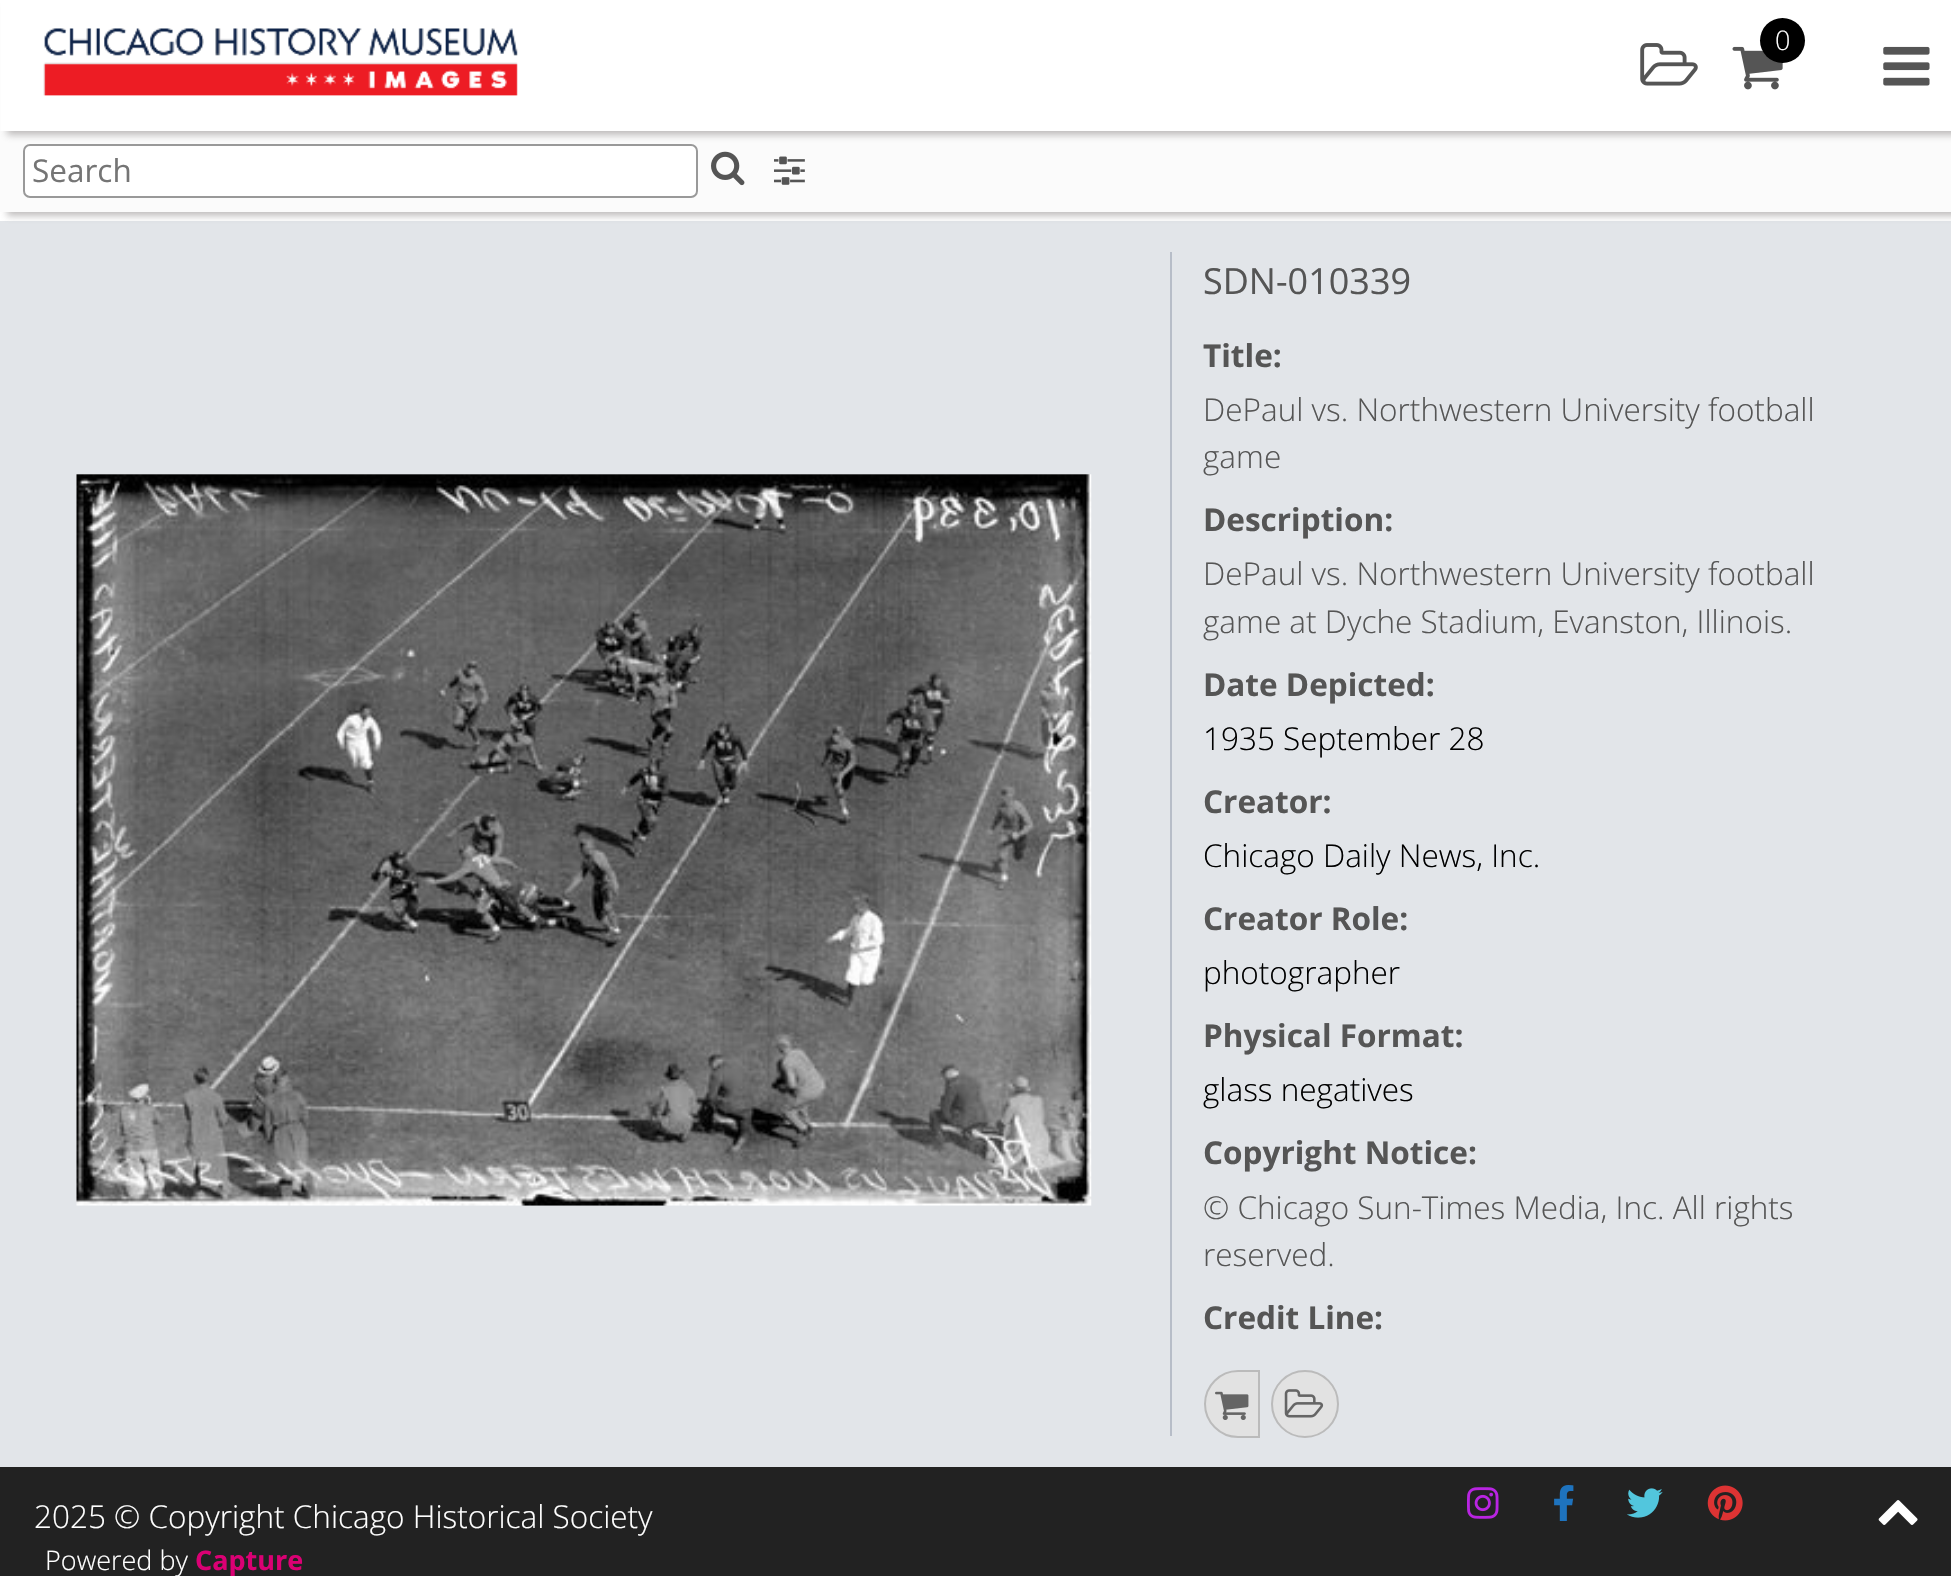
void draw(SkCanvas* c) {
SkPaint p;
p.setAntiAlias(true);
auto F=[&](const char* family, int weight, float size, bool italic = false){SkFontStyle style(weight, SkFontStyle::kNormal_Width,italic ? SkFontStyle::kItalic_Slant : SkFontStyle::kUpright_Slant);SkFont result(fontMgr->matchFamilyStyle(family, style), size);result.setSubpixel(true);return result;};
auto T=[&](const char* s, float x, float y, const SkFont& font){c->drawString(s, x, y, font, p);};
auto R=[&](float x, float y, float w, float h){c->drawRect(SkRect::MakeXYWH(x, y, w, h), p);};
auto I=[&](const char* path, float x, float y, float w, float h){auto image = SkImages::DeferredFromEncodedData(SkData::MakeFromFileName(path));c->drawImageRect(image, SkRect::MakeXYWH(x, y, w, h), SkSamplingOptions());};
auto P=[&](const char* data, bool evenOdd = false){SkPath result = *SkParsePath::FromSVGString(data);if (evenOdd) result.setFillType(SkPathFillType::kEvenOdd);return result;};
c->clear(0xffffffff);
p.setColor(0xffe2e5e9);
R(0,221,1951,1246);
p.setColor(0x594a4545);
p.setMaskFilter(SkMaskFilter::MakeBlur(kNormal_SkBlurStyle, 3.5));
c->drawRect(SkRect::MakeXYWH(7,135,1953,81),p);
p.setMaskFilter(nullptr);
p.setColor(0xfffbfbfb);
R(0,131,1951,81);
p.setColor(0xffffffff);
c->drawRoundRect(SkRect::MakeXYWH(24,145,673,52),6,6,p);
p.setStroke(true);
p.setStrokeWidth(2);
p.setColor(0xff999999);
c->drawRoundRect(SkRect::MakeXYWH(24,145,673,52),6,6,p);
p.setStroke(false);
p.setColor(0x594a4545);
p.setMaskFilter(SkMaskFilter::MakeBlur(kNormal_SkBlurStyle, 3.5));
c->drawRect(SkRect::MakeXYWH(7,5,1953,130),p);
p.setMaskFilter(nullptr);
p.setColor(0xffffffff);
R(1,0,1950,131);
I("1.png",43,28,475,68);
I("2.png",1732,46,51,44);
p.setColor(0xff000000);
c->drawCircle(1782.5,40.5,22.5,p);
auto f1 = F("Open Sans",300,27);
p.setColor(0xffffffff);
T("0",1775,50,f1);
I("3.png",1640,43,58,43);
I("4.png",1883,46,47,40);
auto f2 = F("Open Sans",400,31.5);
p.setColor(0xff757575);
T("Search",32,182,f2);
I("5.png",711,151,34,35);
I("6.png",774,156,31,29);
p.setColor(0xffb7bdc8);
R(1170,252,2,1184);
I("7.png",76,474,1016,732);
auto f3 = F("Open Sans",400,36);
p.setColor(0xff555555);
T("SDN-010339",1203,294,f3);
auto f4 = F("Open Sans",700,31.5);
T("Title:",1203,367,f4);
auto f5 = F("Open Sans",300,31.5);
T("DePaul vs. Northwestern University football",1203,421,f5);
T("game",1203,468,f5);
T("Description:",1203,531,f4);
T("DePaul vs. Northwestern University football",1203,585,f5);
T("game at Dyche Stadium, Evanston, Illinois.",1203,633,f5);
T("Date Depicted:",1203,696,f4);
p.setColor(0xff000000);
T("1935 September 28",1203,750,f5);
p.setColor(0xff555555);
T("Creator:",1203,813,f4);
p.setColor(0xff000000);
T("Chicago Daily News, Inc.",1203,867,f5);
p.setColor(0xff555555);
T("Creator Role:",1203,930,f4);
p.setColor(0xff000000);
T("photographer",1203,984,f5);
p.setColor(0xff555555);
T("Physical Format:",1203,1047,f4);
p.setColor(0xff000000);
T("glass negatives",1203,1101,f5);
p.setColor(0xff555555);
T("Copyright Notice:",1203,1164,f4);
T("© Chicago Sun-Times Media, Inc. All rights",1203,1219,f5);
T("reserved.",1203,1266,f5);
T("Credit Line:",1203,1329,f4);
p.setColor(0xffe2e2e2);
c->drawPath(P("M1238 1371h21v66h-21c-18 0-33-15-33-33c0-18 15-33 33-33z"),p);
p.setStroke(true);
p.setColor(0xffbbbbbb);
c->drawPath(P("M1238 1371h21v66h-21c-18 0-33-15-33-33c0-18 15-33 33-33z"),p);
I("8.png",1215,1391,34,29);
p.setStroke(false);
p.setColor(0xffe2e2e2);
c->drawCircle(1305,1404,33,p);
p.setStroke(true);
p.setColor(0xffbbbbbb);
c->drawCircle(1305,1404,33,p);
I("9.png",1284,1389,40,29);
p.setStroke(false);
p.setColor(0xff222222);
R(0,1467,1951,109);
p.setColor(0xffffffff);
T("2025 © Copyright Chicago Historical Society",34,1528,f5);
T("Powered by",45,1570,f1);
auto f6 = F("Open Sans",700,27);
p.setColor(0xffdb0074);
T("Capture",195,1570,f6);
I("10.png",1467,1487,32,32);
I("11.png",1554,1485,20,36);
I("12.png",1627,1488,36,30);
I("13.png",1707,1485,36,36);
I("14.png",1878,1500,40,25);
}
